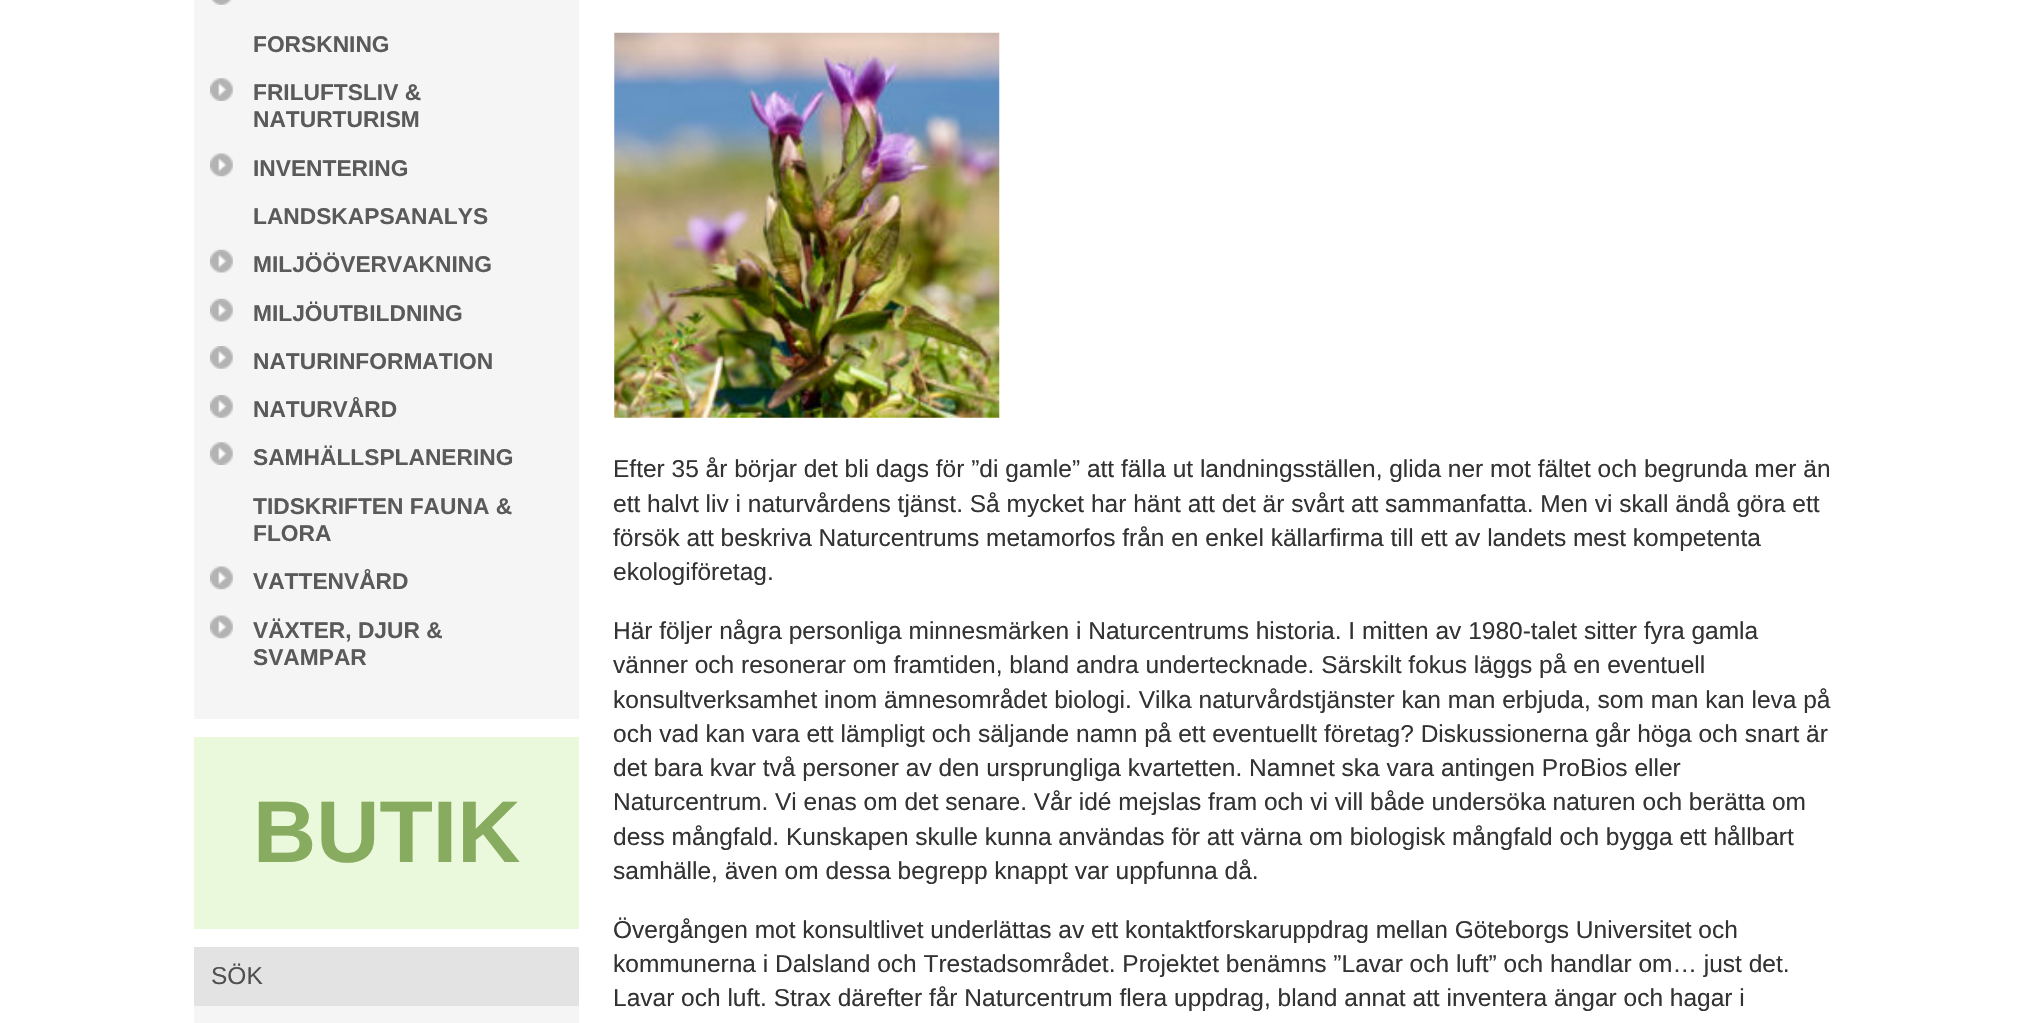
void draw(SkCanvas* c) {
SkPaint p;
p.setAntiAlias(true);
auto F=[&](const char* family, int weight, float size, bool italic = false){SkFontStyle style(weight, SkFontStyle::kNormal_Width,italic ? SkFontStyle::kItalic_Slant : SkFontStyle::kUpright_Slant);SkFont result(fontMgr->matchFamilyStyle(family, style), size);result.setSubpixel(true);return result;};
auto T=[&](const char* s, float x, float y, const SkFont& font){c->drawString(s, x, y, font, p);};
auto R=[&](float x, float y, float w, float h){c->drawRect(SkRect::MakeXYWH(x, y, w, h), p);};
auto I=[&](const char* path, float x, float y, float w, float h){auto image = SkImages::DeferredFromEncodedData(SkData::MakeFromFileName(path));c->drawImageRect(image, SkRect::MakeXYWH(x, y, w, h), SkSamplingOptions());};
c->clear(0xffffffff);
p.setColor(0xfff5f5f5);
R(194,0,385,719);
I("1.png",211,0,21,5);
auto f1 = F("Liberation Sans",700,22.75);
p.setColor(0xff5a5a5a);
T("FORSKNING",253,52,f1);
I("2.png",210,78,23,23);
T("FRILUFTSLIV &",253,100,f1);
T("NATURTURISM",253,127,f1);
I("3.png",210,153,23,24);
T("INVENTERING",253,176,f1);
T("LANDSKAPSANALYS",253,224,f1);
I("4.png",210,249,23,24);
T("MILJÖÖVERVAKNING",253,272,f1);
I("4.png",210,298,23,24);
T("MILJÖUTBILDNING",253,321,f1);
I("5.png",210,346,23,23);
T("NATURINFORMATION",253,369,f1);
I("5.png",210,395,23,23);
T("NATURVÅRD",253,417,f1);
I("2.png",210,442,23,23);
T("SAMHÄLLSPLANERING",253,465,f1);
T("TIDSKRIFTEN FAUNA &",253,514,f1);
T("FLORA",253,541,f1);
I("3.png",210,566,23,24);
T("VATTENVÅRD",253,589,f1);
I("3.png",210,615,23,24);
T("VÄXTER, DJUR &",253,638,f1);
T("SVAMPAR",253,665,f1);
p.setColor(0xffeaf8db);
R(194,737,385,192);
auto f2 = F("Liberation Sans",700,87.5);
p.setColor(0xff87ac5f);
T("BUTIK",253,862,f2);
p.setColor(0xfff5f5f5);
R(194,1006,385,17);
p.setColor(0xffe3e3e3);
R(194,947,385,59);
auto f3 = F("Liberation Sans",400,24.5);
p.setColor(0xff505050);
T("SÖK",211,984,f3);
I("6.png",614,32,386,386);
p.setColor(0xff333333);
T("Efter 35 år börjar det bli dags för ”di gamle” att fälla ut landningsställen, glida ner mot fältet och begrunda mer än",613,477,f3);
T("ett halvt liv i naturvårdens tjänst. Så mycket har hänt att det är svårt att sammanfatta. Men vi skall ändå göra ett",613,512,f3);
T("försök att beskriva Naturcentrums metamorfos från en enkel källarfirma till ett av landets mest kompetenta",613,546,f3);
T("ekologiföretag.",613,580,f3);
T("Här följer några personliga minnesmärken i Naturcentrums historia. I mitten av 1980-talet sitter fyra gamla",613,639,f3);
T("vänner och resonerar om framtiden, bland andra undertecknade. Särskilt fokus läggs på en eventuell",613,673,f3);
T("konsultverksamhet inom ämnesområdet biologi. Vilka naturvårdstjänster kan man erbjuda, som man kan leva på",613,708,f3);
T("och vad kan vara ett lämpligt och säljande namn på ett eventuellt företag? Diskussionerna går höga och snart är",613,742,f3);
T("det bara kvar två personer av den ursprungliga kvartetten. Namnet ska vara antingen ProBios eller",613,776,f3);
T("Naturcentrum. Vi enas om det senare. Vår idé mejslas fram och vi vill både undersöka naturen och berätta om",613,810,f3);
T("dess mångfald. Kunskapen skulle kunna användas för att värna om biologisk mångfald och bygga ett hållbart",613,845,f3);
T("samhälle, även om dessa begrepp knappt var uppfunna då.",613,879,f3);
T("Övergången mot konsultlivet underlättas av ett kontaktforskaruppdrag mellan Göteborgs Universitet och",613,938,f3);
T("kommunerna i Dalsland och Trestadsområdet. Projektet benämns ”Lavar och luft” och handlar om… just det.",613,972,f3);
T("Lavar och luft. Strax därefter får Naturcentrum flera uppdrag, bland annat att inventera ängar och hagar i",613,1006,f3);
}
